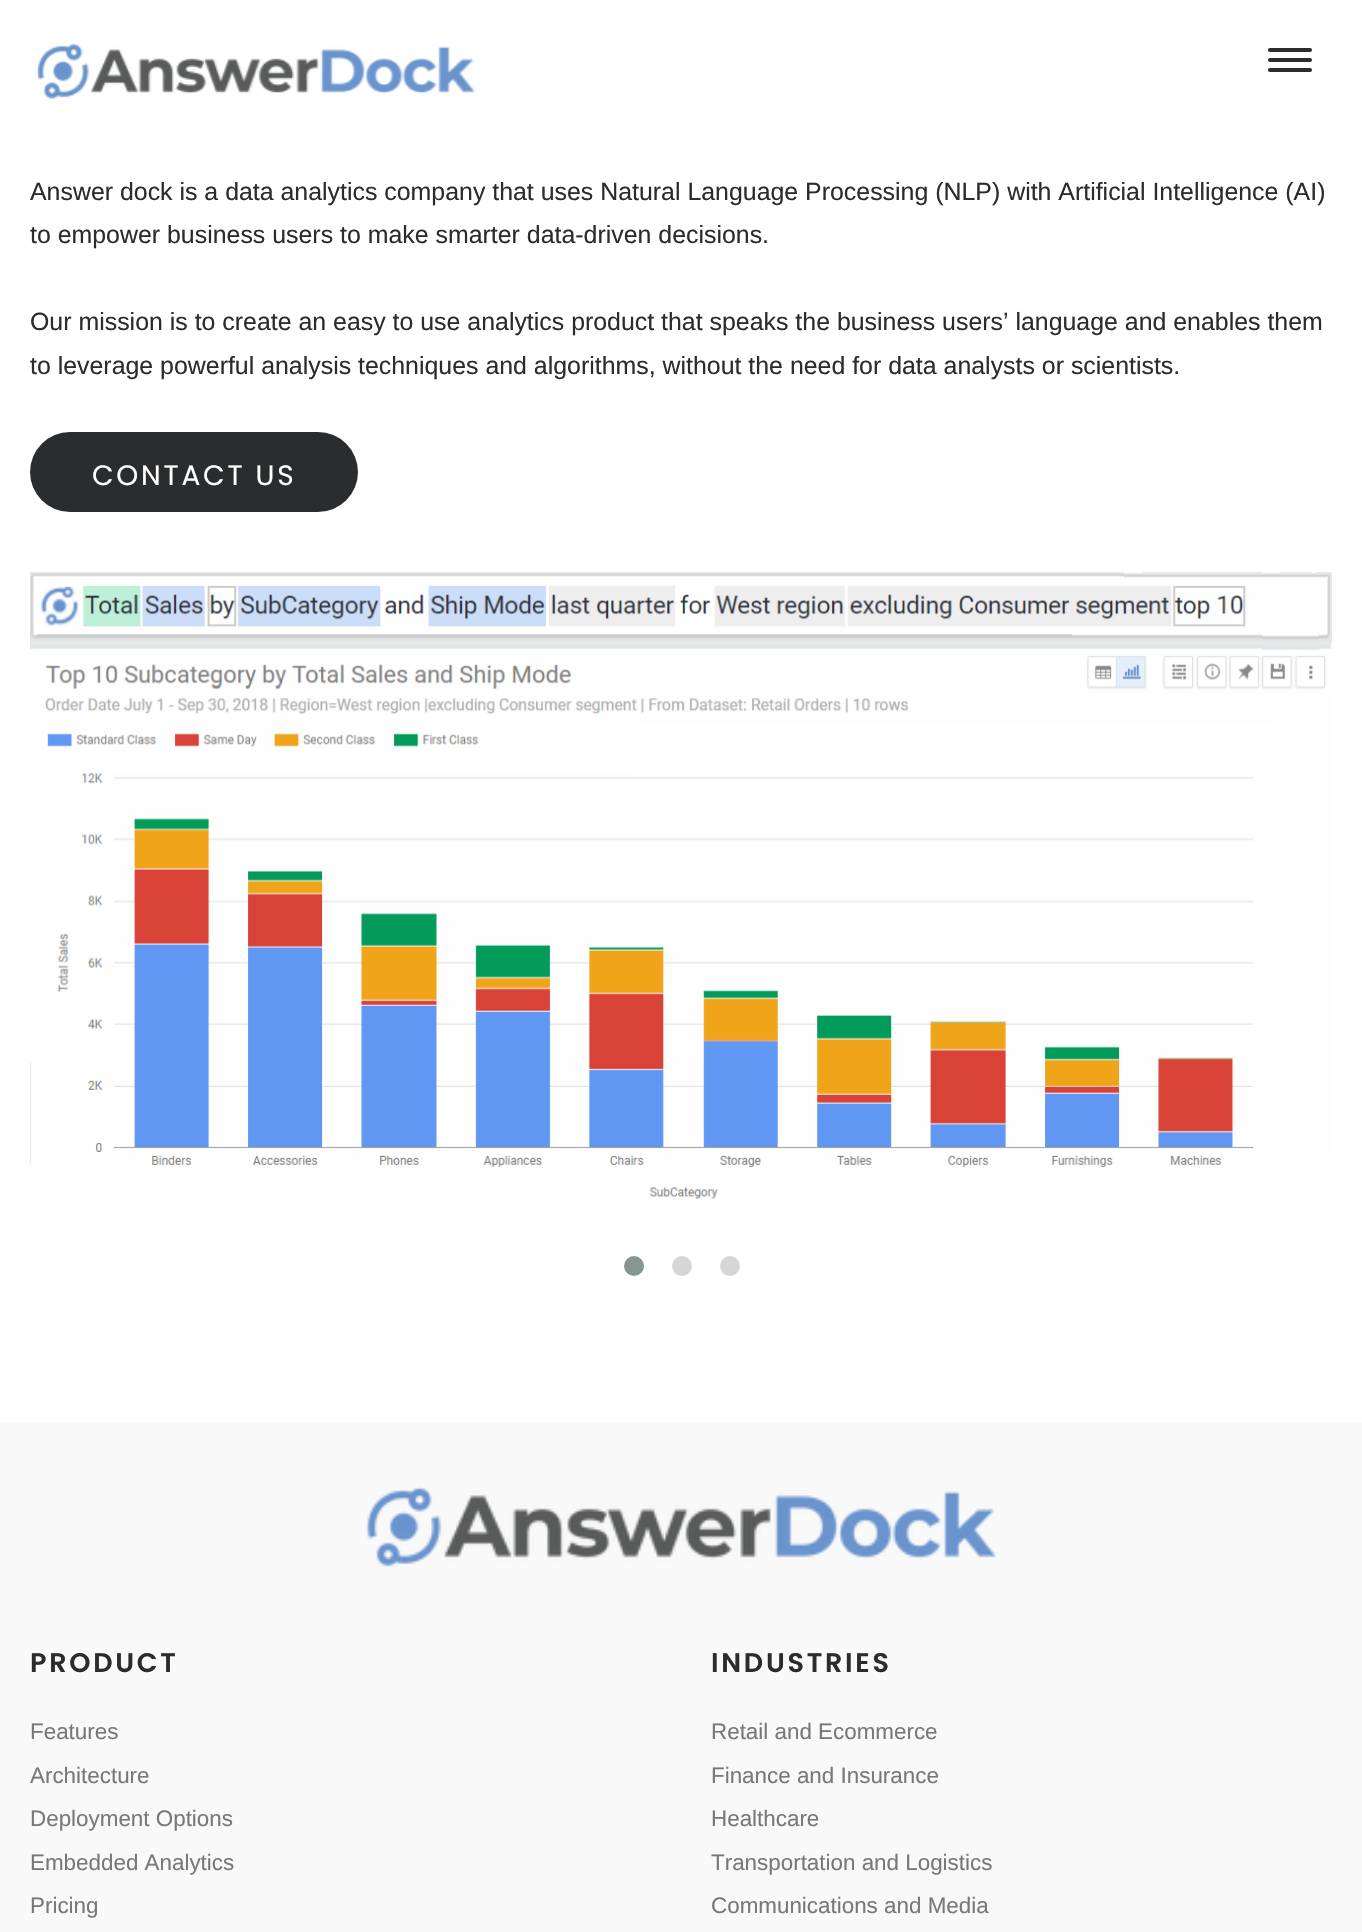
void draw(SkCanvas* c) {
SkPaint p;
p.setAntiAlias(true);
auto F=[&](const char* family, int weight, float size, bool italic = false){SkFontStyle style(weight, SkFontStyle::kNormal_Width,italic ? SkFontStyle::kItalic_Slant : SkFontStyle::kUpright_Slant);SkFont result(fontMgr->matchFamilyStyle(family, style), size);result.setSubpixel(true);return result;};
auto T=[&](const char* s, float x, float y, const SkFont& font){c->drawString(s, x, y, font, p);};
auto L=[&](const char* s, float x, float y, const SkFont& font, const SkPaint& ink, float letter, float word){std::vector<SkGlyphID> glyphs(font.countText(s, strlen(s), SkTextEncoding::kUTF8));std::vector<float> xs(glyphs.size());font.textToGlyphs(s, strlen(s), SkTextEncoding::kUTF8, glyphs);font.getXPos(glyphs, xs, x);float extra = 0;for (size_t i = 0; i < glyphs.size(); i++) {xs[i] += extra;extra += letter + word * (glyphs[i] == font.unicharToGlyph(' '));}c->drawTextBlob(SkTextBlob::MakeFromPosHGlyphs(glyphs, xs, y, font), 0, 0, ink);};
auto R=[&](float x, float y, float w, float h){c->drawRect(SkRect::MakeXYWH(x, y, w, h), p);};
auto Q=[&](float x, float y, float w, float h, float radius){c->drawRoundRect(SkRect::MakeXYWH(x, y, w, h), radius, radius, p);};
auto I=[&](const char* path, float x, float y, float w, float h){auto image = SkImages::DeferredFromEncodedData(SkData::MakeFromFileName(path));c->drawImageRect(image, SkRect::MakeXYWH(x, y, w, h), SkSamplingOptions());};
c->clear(0xffffffff);
I("1.png",37,43,439,56);
p.setColor(0xff2b2c2d);
Q(1268,58,44,4,2);
Q(1268,48,44,4,2);
Q(1268,68,44,4,2);
auto f1 = F("Liberation Sans",400,24.9);
T("Answer dock is a data analytics company that uses Natural Language Processing (NLP) with Artificial Intelligence (AI)",30,200,f1);
T("to empower business users to make smarter data-driven decisions.",30,243,f1);
T("Our mission is to create an easy to use analytics product that speaks the business users’ language and enables them",30,330,f1);
T("to leverage powerful analysis techniques and algorithms, without the need for data analysts or scientists.",30,374,f1);
Q(30,432,328,80,40);
auto f2 = F("Poppins",400,28);
p.setColor(0xffffffff);
L("CONTACT US",92,485,f2,p,2.75,0);
I("2.png",30,572,1302,627);
p.setColor(0xff869791);
c->drawCircle(634,1266,10,p);
p.setColor(0xffd6d6d6);
c->drawCircle(682,1266,10,p);
c->drawCircle(730,1266,10,p);
p.setColor(0xfff9f9f9);
R(0,1422,1362,510);
I("3.png",366,1486,630,81);
auto f3 = F("Poppins",600,27);
p.setColor(0xff2b2c2d);
L("PRODUCT",30,1672,f3,p,2.75,0);
auto f4 = F("Liberation Sans",400,22.4);
p.setColor(0xff787878);
T("Features",30,1739,f4);
T("Architecture",30,1783,f4);
T("Deployment Options",30,1826,f4);
T("Embedded Analytics",30,1870,f4);
T("Pricing",30,1913,f4);
p.setColor(0xff2b2c2d);
L("INDUSTRIES",711,1672,f3,p,2.75,0);
p.setColor(0xff787878);
T("Retail and Ecommerce",711,1739,f4);
T("Finance and Insurance",711,1783,f4);
T("Healthcare",711,1826,f4);
T("Transportation and Logistics",711,1870,f4);
T("Communications and Media",711,1913,f4);
}
